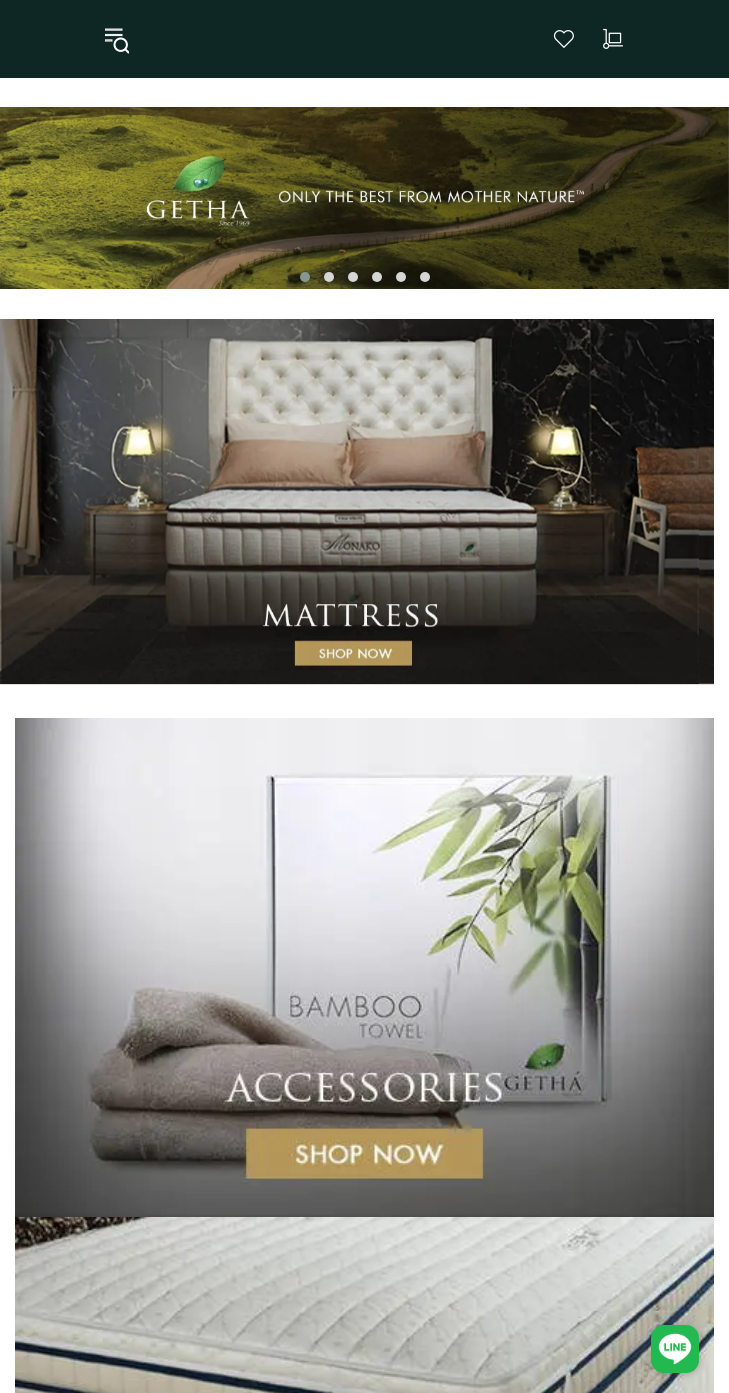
void draw(SkCanvas* c) {
SkPaint p;
p.setAntiAlias(true);
auto R=[&](float x, float y, float w, float h){c->drawRect(SkRect::MakeXYWH(x, y, w, h), p);};
auto I=[&](const char* path, float x, float y, float w, float h){auto image = SkImages::DeferredFromEncodedData(SkData::MakeFromFileName(path));c->drawImageRect(image, SkRect::MakeXYWH(x, y, w, h), SkSamplingOptions());};
c->clear(0xffffffff);
p.setColor(0xff0f2724);
R(0,0,729,78);
I("1.png",105,28,24,26);
I("2.png",553,30,21,19);
I("3.png",603,28,20,21);
I("4.png",0,107,729,182);
p.setColor(0xff869791);
c->drawCircle(305,277,5,p);
p.setColor(0xffd6d6d6);
c->drawCircle(329,277,5,p);
c->drawCircle(353,277,5,p);
c->drawCircle(377,277,5,p);
c->drawCircle(401,277,5,p);
c->drawCircle(425,277,5,p);
I("5.png",0,319,714,366);
I("6.png",0,673,699,11);
I("7.png",0,319,699,354);
I("8.png",15,718,699,499);
I("9.png",15,1217,699,176);
p.setColor(0x80000000);
p.setMaskFilter(SkMaskFilter::MakeBlur(kNormal_SkBlurStyle, 6));
c->drawRoundRect(SkRect::MakeXYWH(658,1332,38,38),8,8,p);
p.setMaskFilter(nullptr);
I("10.png",651,1325,48,48);
}
